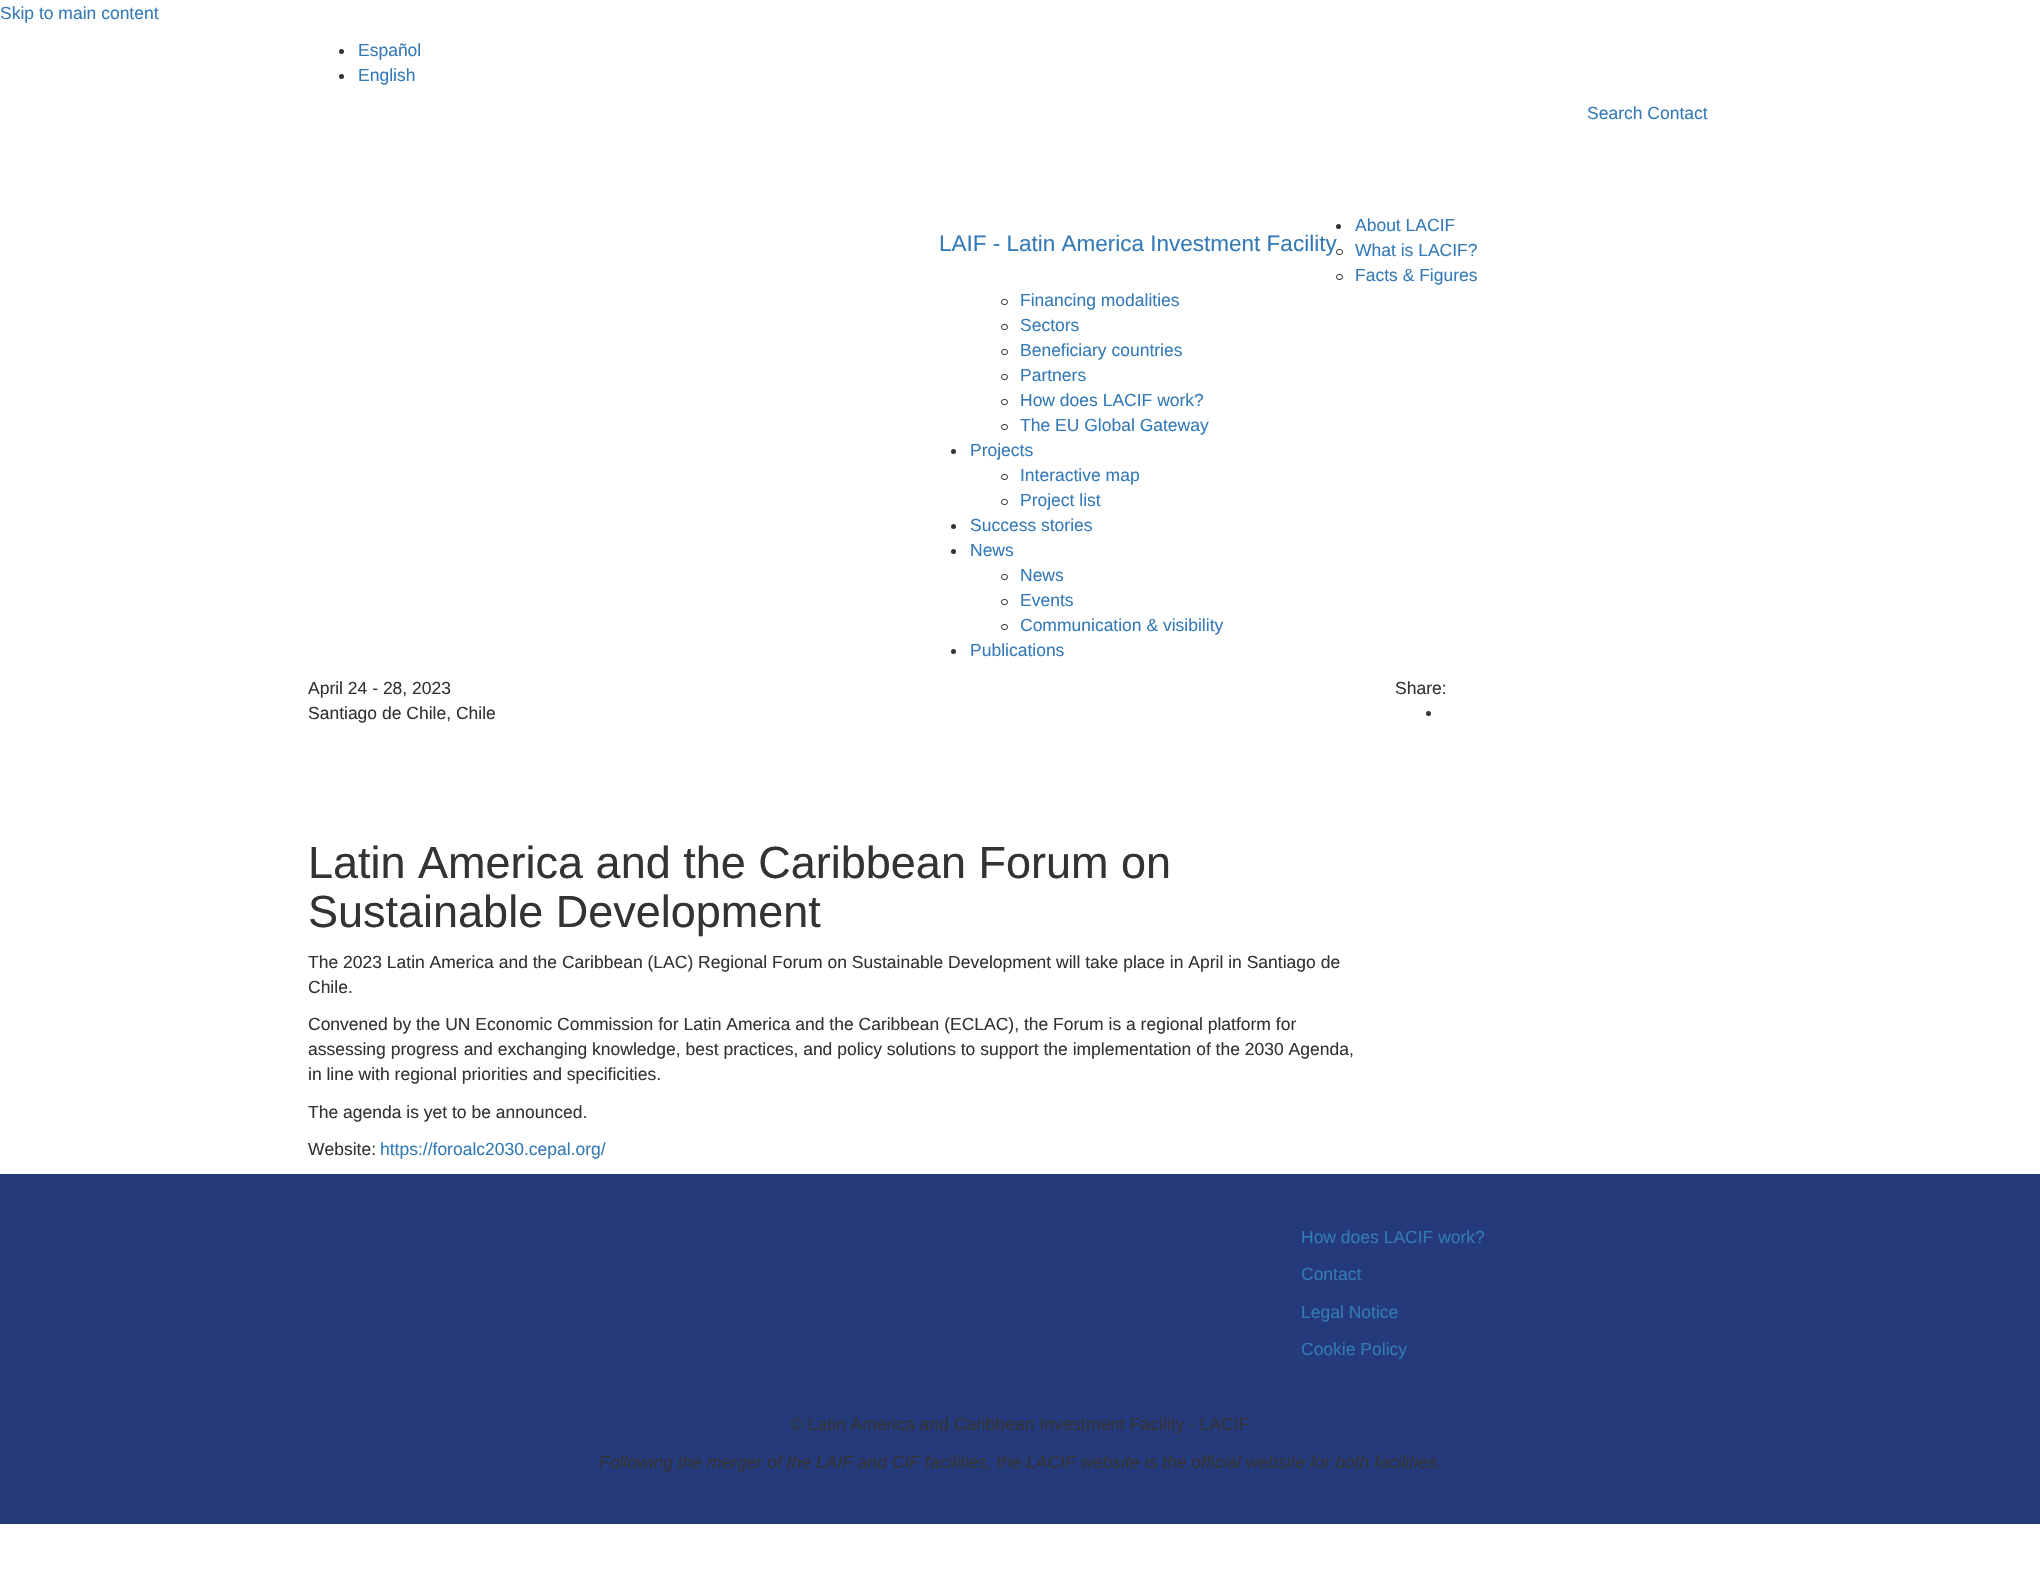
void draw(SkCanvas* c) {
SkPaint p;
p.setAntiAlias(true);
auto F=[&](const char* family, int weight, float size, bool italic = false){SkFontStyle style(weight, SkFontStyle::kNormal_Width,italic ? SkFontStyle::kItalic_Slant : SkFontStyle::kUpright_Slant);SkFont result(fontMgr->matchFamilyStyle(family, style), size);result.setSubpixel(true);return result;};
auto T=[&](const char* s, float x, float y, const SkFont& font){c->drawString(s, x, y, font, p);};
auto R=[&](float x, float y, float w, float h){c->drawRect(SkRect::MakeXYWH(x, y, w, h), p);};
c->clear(0xffffffff);
auto f1 = F("Liberation Sans",400,17.5);
p.setColor(0xff337ab7);
T("Skip to main content",0,19,f1);
p.setColor(0xff333333);
c->drawCircle(341.5,51.5,2.5,p);
p.setColor(0xff337ab7);
T("Español",358,56,f1);
p.setColor(0xff333333);
c->drawCircle(341.5,76.5,2.5,p);
p.setColor(0xff337ab7);
T("English",358,81,f1);
T("Search Contact",1587,119,f1);
p.setColor(0xff333333);
c->drawCircle(1338.5,226.5,2.5,p);
p.setColor(0xff337ab7);
T("About LACIF",1355,231,f1);
auto f2 = F("Liberation Sans",400,22.5);
T("LAIF - Latin America Investment Facility",939,251,f2);
p.setStroke(true);
p.setStrokeWidth(1);
p.setColor(0xff333333);
c->drawRoundRect(SkRect::MakeXYWH(1336.5,249.5,6,5),2.5,2.5,p);
p.setStroke(false);
p.setColor(0xff337ab7);
T("What is LACIF?",1355,256,f1);
p.setStroke(true);
p.setColor(0xff333333);
c->drawRoundRect(SkRect::MakeXYWH(1336.5,274.5,6,5),2.5,2.5,p);
p.setStroke(false);
p.setColor(0xff337ab7);
T("Facts & Figures",1355,281,f1);
p.setStroke(true);
p.setColor(0xff333333);
c->drawRoundRect(SkRect::MakeXYWH(1001.5,299.5,6,5),2.5,2.5,p);
p.setStroke(false);
p.setColor(0xff337ab7);
T("Financing modalities",1020,306,f1);
p.setStroke(true);
p.setColor(0xff333333);
c->drawRoundRect(SkRect::MakeXYWH(1001.5,324.5,6,5),2.5,2.5,p);
p.setStroke(false);
p.setColor(0xff337ab7);
T("Sectors",1020,331,f1);
p.setStroke(true);
p.setColor(0xff333333);
c->drawRoundRect(SkRect::MakeXYWH(1001.5,349.5,6,5),2.5,2.5,p);
p.setStroke(false);
p.setColor(0xff337ab7);
T("Beneficiary countries",1020,356,f1);
p.setStroke(true);
p.setColor(0xff333333);
c->drawRoundRect(SkRect::MakeXYWH(1001.5,374.5,6,5),2.5,2.5,p);
p.setStroke(false);
p.setColor(0xff337ab7);
T("Partners",1020,381,f1);
p.setStroke(true);
p.setColor(0xff333333);
c->drawRoundRect(SkRect::MakeXYWH(1001.5,399.5,6,5),2.5,2.5,p);
p.setStroke(false);
p.setColor(0xff337ab7);
T("How does LACIF work?",1020,406,f1);
p.setStroke(true);
p.setColor(0xff333333);
c->drawRoundRect(SkRect::MakeXYWH(1001.5,424.5,6,5),2.5,2.5,p);
p.setStroke(false);
p.setColor(0xff337ab7);
T("The EU Global Gateway",1020,431,f1);
p.setColor(0xff333333);
c->drawCircle(953.5,451.5,2.5,p);
p.setColor(0xff337ab7);
T("Projects",970,456,f1);
p.setStroke(true);
p.setColor(0xff333333);
c->drawRoundRect(SkRect::MakeXYWH(1001.5,474.5,6,5),2.5,2.5,p);
p.setStroke(false);
p.setColor(0xff337ab7);
T("Interactive map",1020,481,f1);
p.setStroke(true);
p.setColor(0xff333333);
c->drawRoundRect(SkRect::MakeXYWH(1001.5,499.5,6,5),2.5,2.5,p);
p.setStroke(false);
p.setColor(0xff337ab7);
T("Project list",1020,506,f1);
p.setColor(0xff333333);
c->drawCircle(953.5,526.5,2.5,p);
p.setColor(0xff337ab7);
T("Success stories",970,531,f1);
p.setColor(0xff333333);
c->drawCircle(953.5,551.5,2.5,p);
p.setColor(0xff337ab7);
T("News",970,556,f1);
p.setStroke(true);
p.setColor(0xff333333);
c->drawRoundRect(SkRect::MakeXYWH(1001.5,574.5,6,5),2.5,2.5,p);
p.setStroke(false);
p.setColor(0xff337ab7);
T("News",1020,581,f1);
p.setStroke(true);
p.setColor(0xff333333);
c->drawRoundRect(SkRect::MakeXYWH(1001.5,599.5,6,5),2.5,2.5,p);
p.setStroke(false);
p.setColor(0xff337ab7);
T("Events",1020,606,f1);
p.setStroke(true);
p.setColor(0xff333333);
c->drawRoundRect(SkRect::MakeXYWH(1001.5,624.5,6,5),2.5,2.5,p);
p.setStroke(false);
p.setColor(0xff337ab7);
T("Communication & visibility",1020,631,f1);
p.setColor(0xff333333);
c->drawCircle(953.5,651.5,2.5,p);
p.setColor(0xff337ab7);
T("Publications",970,656,f1);
p.setColor(0xff333333);
T("April 24 - 28, 2023",308,694,f1);
T("Santiago de Chile, Chile",308,719,f1);
auto f3 = F("Liberation Sans",400,45);
T("Latin America and the Caribbean Forum on",308,878,f3);
T("Sustainable Development",308,927,f3);
T("The 2023 Latin America and the Caribbean (LAC) Regional Forum on Sustainable Development will take place in April in Santiago de",308,968,f1);
T("Chile.",308,993,f1);
T("Convened by the UN Economic Commission for Latin America and the Caribbean (ECLAC), the Forum is a regional platform for",308,1030,f1);
T("assessing progress and exchanging knowledge, best practices, and policy solutions to support the implementation of the 2030 Agenda,",308,1055,f1);
T("in line with regional priorities and specificities.",308,1080,f1);
T("The agenda is yet to be announced.",308,1118,f1);
T("Website:",308,1155,f1);
p.setColor(0xff337ab7);
T("https://foroalc2030.cepal.org/",380,1155,f1);
p.setColor(0xff333333);
T("Share:",1395,694,f1);
c->drawCircle(1428.5,713.5,2.5,p);
p.setColor(0xff253a7a);
R(0,1174,2040,350);
p.setColor(0xff337ab7);
T("How does LACIF work?",1301,1243,f1);
T("Contact",1301,1280,f1);
T("Legal Notice",1301,1318,f1);
T("Cookie Policy",1301,1355,f1);
p.setColor(0xff333333);
T("© Latin America and Caribbean Investment Facility - LACIF",790,1430,f1);
auto f4 = F("Liberation Sans",400,17.5,true);
T("Following the merger of the LAIF and CIF facilities, the LACIF website is the official website for both facilities.",599,1468,f4);
}
